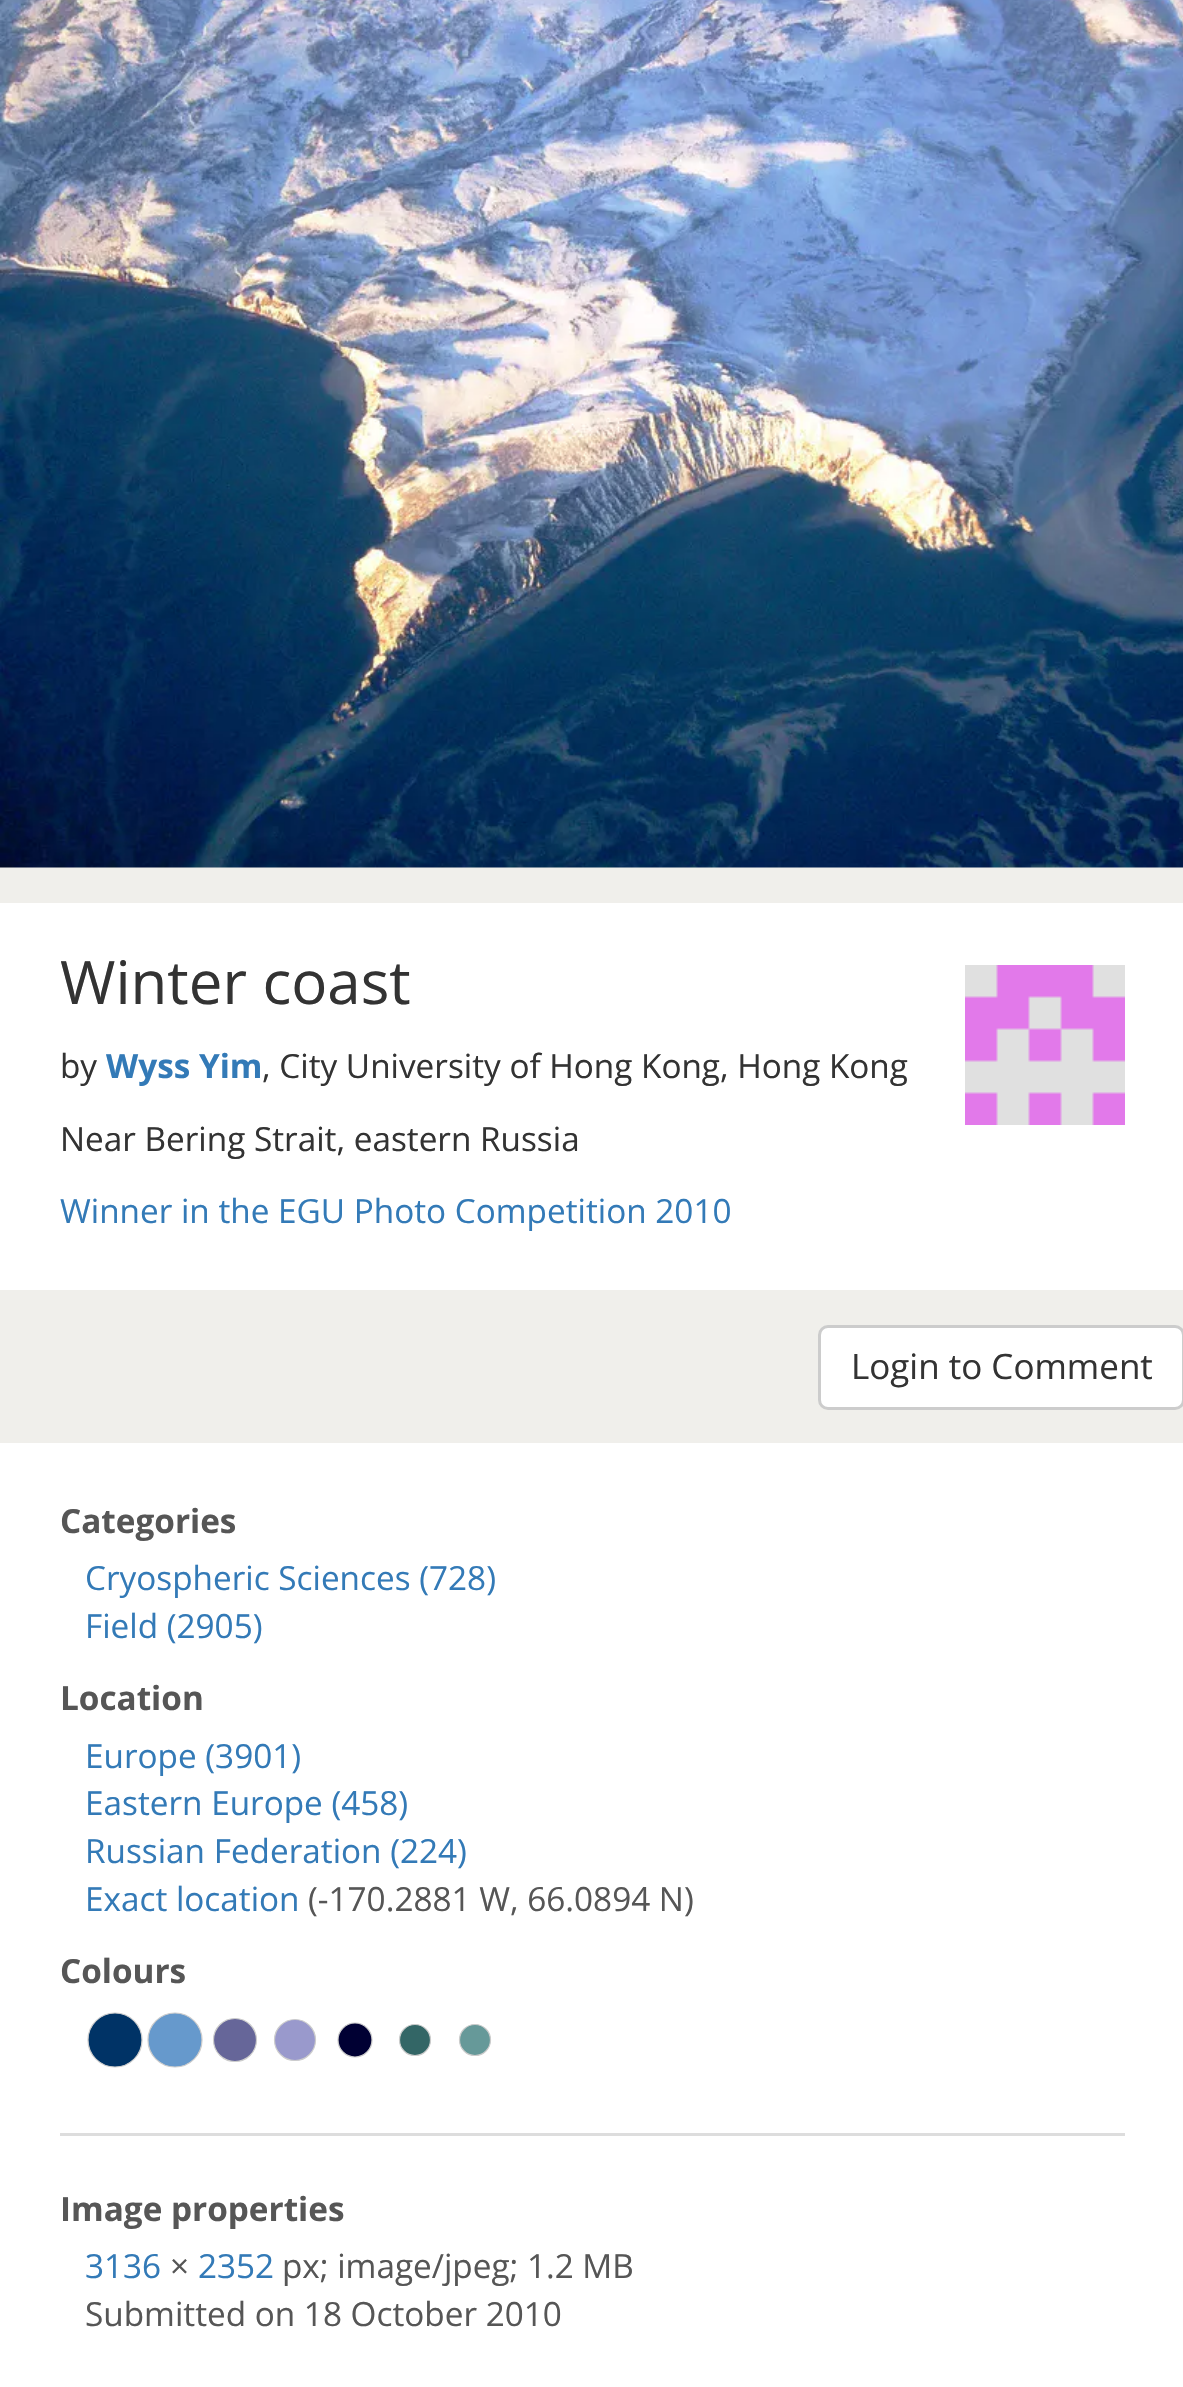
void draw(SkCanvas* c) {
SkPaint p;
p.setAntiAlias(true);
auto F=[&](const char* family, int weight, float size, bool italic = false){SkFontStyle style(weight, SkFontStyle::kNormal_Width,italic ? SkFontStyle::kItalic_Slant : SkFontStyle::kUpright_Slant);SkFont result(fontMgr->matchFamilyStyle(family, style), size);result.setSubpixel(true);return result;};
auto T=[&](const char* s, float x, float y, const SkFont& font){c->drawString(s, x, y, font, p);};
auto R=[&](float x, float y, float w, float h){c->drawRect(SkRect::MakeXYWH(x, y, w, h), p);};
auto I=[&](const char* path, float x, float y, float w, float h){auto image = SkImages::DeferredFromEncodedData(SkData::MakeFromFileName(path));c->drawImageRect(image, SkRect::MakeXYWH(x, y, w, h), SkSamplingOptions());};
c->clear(0xfff0efeb);
I("1.png",0,0,1183,868);
p.setColor(0xffffffff);
R(0,903,1183,387);
auto f1 = F("Open Sans",400,60);
p.setColor(0xff333333);
T("Winter coast",60,1004,f1);
I("2.png",965,965,160,160);
auto f2 = F("Open Sans",400,33.3);
T("by",60,1078,f2);
auto f3 = F("Open Sans",700,33.3);
p.setColor(0xff337ab7);
T("Wyss Yim",106,1078,f3);
p.setColor(0xff333333);
T(", City University of Hong Kong, Hong Kong",262,1078,f2);
T("Near Bering Strait, eastern Russia",60,1151,f2);
p.setColor(0xff337ab7);
T("Winner in the EGU Photo Competition 2010",60,1223,f2);
p.setColor(0xffffffff);
c->drawRoundRect(SkRect::MakeXYWH(819.5,1326.5,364,82),8.5,8.5,p);
p.setStroke(true);
p.setStrokeWidth(3);
p.setColor(0xffcccccc);
c->drawRoundRect(SkRect::MakeXYWH(819.5,1326.5,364,82),8.5,8.5,p);
auto f4 = F("Open Sans",400,35);
p.setStroke(false);
p.setColor(0xff333333);
T("Login to Comment",851,1379,f4);
p.setColor(0xffffffff);
R(0,1443,1183,944);
p.setColor(0xff565656);
T("Categories",60,1533,f3);
p.setColor(0xff337ab7);
T("Cryospheric Sciences (728)",85,1590,f2);
T("Field (2905)",85,1638,f2);
p.setColor(0xff565656);
T("Location",60,1710,f3);
p.setColor(0xff337ab7);
T("Europe (3901)",85,1768,f2);
T("Eastern Europe (458)",85,1815,f2);
T("Russian Federation (224)",85,1863,f2);
T("Exact location",85,1911,f2);
p.setColor(0xff565656);
T("(-170.2881 W, 66.0894 N)",308,1911,f2);
T("Colours",60,1983,f3);
p.setColor(0xff003366);
c->drawCircle(115,2040,27,p);
p.setStroke(true);
p.setStrokeWidth(1.2);
p.setColor(0xffcccccc);
c->drawCircle(115,2040,27,p);
p.setStroke(false);
p.setColor(0xff6699cc);
c->drawCircle(175,2040,27,p);
p.setStroke(true);
p.setColor(0xffcccccc);
c->drawCircle(175,2040,27,p);
p.setStroke(false);
p.setColor(0xff666699);
c->drawCircle(235,2040,21.5,p);
p.setStroke(true);
p.setColor(0xffcccccc);
c->drawCircle(235,2040,21.5,p);
p.setStroke(false);
p.setColor(0xff9999cc);
c->drawCircle(295,2040,20.5,p);
p.setStroke(true);
p.setColor(0xffcccccc);
c->drawCircle(295,2040,20.5,p);
p.setStroke(false);
p.setColor(0xff000033);
c->drawCircle(355,2040,17,p);
p.setStroke(true);
p.setColor(0xffcccccc);
c->drawCircle(355,2040,17,p);
p.setStroke(false);
p.setColor(0xff336666);
c->drawCircle(415,2040,15.5,p);
p.setStroke(true);
p.setColor(0xffcccccc);
c->drawCircle(415,2040,15.5,p);
p.setStroke(false);
p.setColor(0xff669999);
c->drawCircle(475,2040,15.5,p);
p.setStroke(true);
p.setColor(0xffcccccc);
c->drawCircle(475,2040,15.5,p);
p.setStroke(false);
p.setColor(0xffdddddd);
R(60,2133,1065,3);
p.setColor(0xff565656);
T("Image properties",60,2221,f3);
p.setColor(0xff337ab7);
T("3136",85,2278,f2);
p.setColor(0xff565656);
T("×",170,2278,f2);
p.setColor(0xff337ab7);
T("2352",198,2278,f2);
p.setColor(0xff565656);
T("px; image/jpeg; 1.2 MB",282,2278,f2);
T("Submitted on 18 October 2010",85,2326,f2);
}
